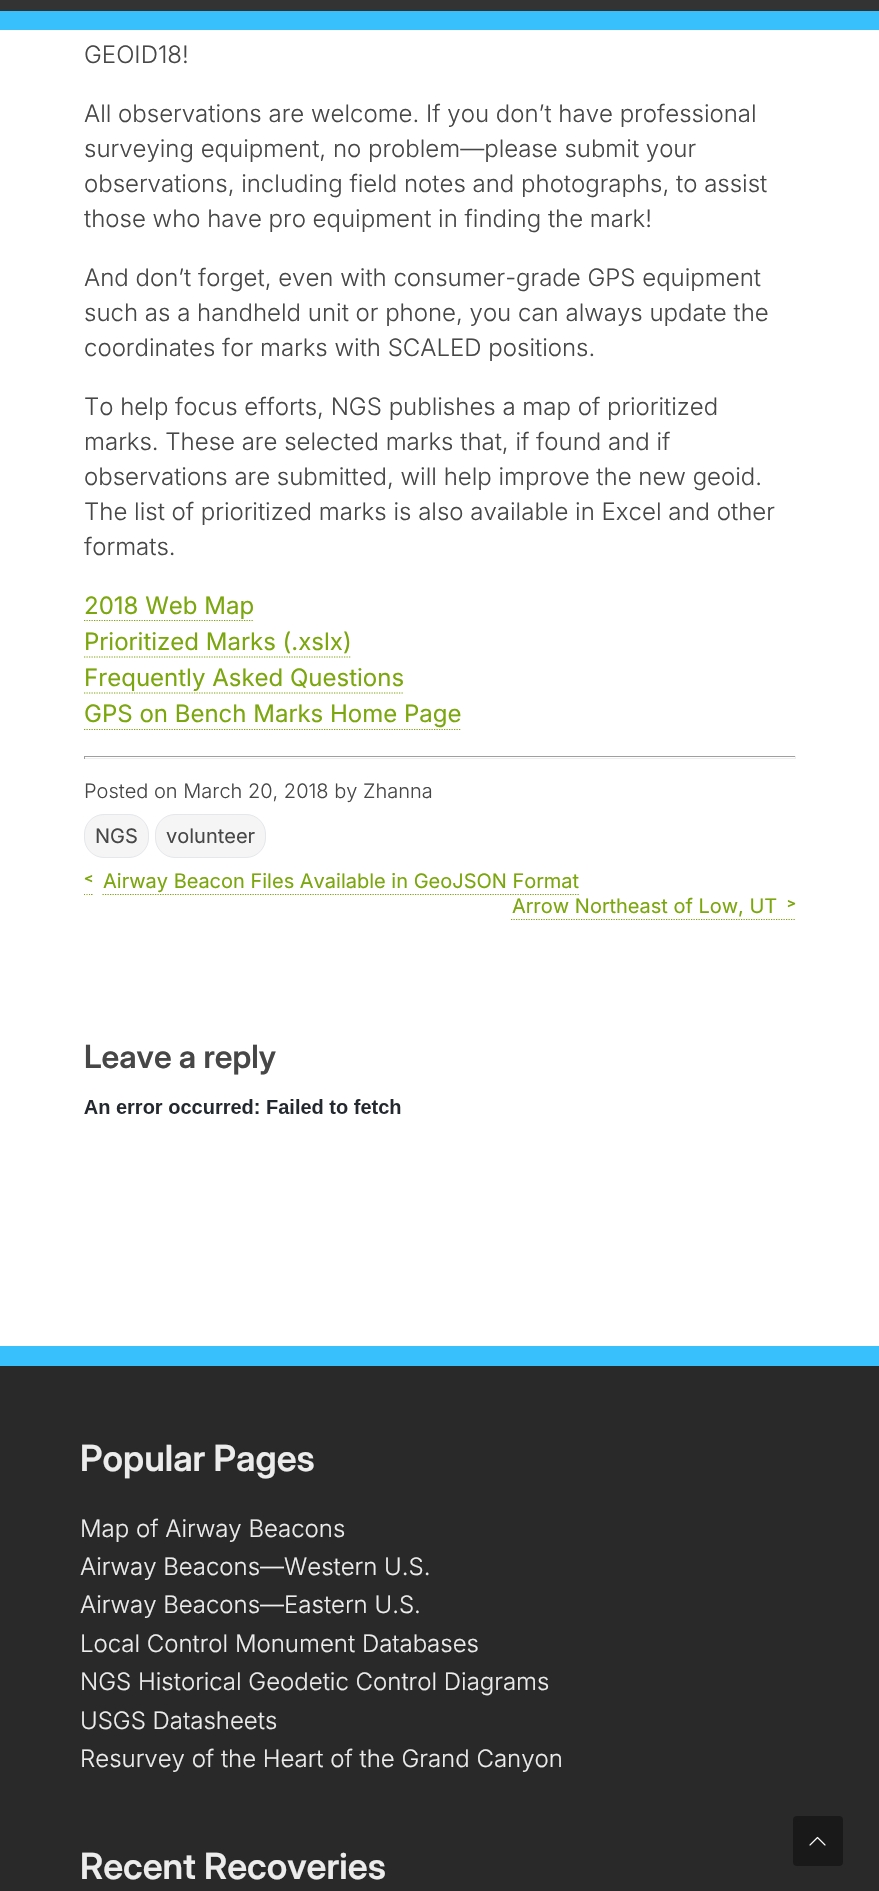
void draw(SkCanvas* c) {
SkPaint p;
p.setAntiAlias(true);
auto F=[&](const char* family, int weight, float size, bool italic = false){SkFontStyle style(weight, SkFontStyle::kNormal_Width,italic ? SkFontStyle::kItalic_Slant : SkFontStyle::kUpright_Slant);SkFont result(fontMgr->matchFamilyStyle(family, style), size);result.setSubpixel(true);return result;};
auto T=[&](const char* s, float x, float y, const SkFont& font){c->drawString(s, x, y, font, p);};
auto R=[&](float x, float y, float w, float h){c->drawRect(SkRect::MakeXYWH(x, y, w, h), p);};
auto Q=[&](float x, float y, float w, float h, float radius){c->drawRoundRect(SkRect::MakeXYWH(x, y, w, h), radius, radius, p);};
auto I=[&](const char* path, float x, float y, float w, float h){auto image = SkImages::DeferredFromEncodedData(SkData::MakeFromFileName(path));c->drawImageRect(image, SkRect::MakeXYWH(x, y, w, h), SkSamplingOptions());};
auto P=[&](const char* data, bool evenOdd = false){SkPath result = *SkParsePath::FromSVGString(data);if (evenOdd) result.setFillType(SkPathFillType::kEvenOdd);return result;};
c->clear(0xffffffff);
p.setColor(0xff333333);
R(0,0,879,11);
p.setColor(0xff37c0fb);
R(0,11,879,19);
auto f1 = F("Inter",300,24);
p.setColor(0xff474747);
T("GEOID18!",84,63,f1);
T("All observations are welcome. If you don’t have professional",84,122,f1);
T("surveying equipment, no problem—please submit your",84,157,f1);
T("observations, including field notes and photographs, to assist",84,192,f1);
T("those who have pro equipment in finding the mark!",84,227,f1);
T("And don’t forget, even with consumer-grade GPS equipment",84,286,f1);
T("such as a handheld unit or phone, you can always update the",84,321,f1);
T("coordinates for marks with SCALED positions.",84,356,f1);
T("To help focus efforts, NGS publishes a map of prioritized",84,415,f1);
T("marks. These are selected marks that, if found and if",84,450,f1);
T("observations are submitted, will help improve the new geoid.",84,485,f1);
T("The list of prioritized marks is also available in Excel and other",84,520,f1);
T("formats.",84,555,f1);
auto f2 = F("Inter",400,24);
p.setColor(0xff7ba60d);
T("2018 Web Map",84,614,f2);
p.setStroke(true);
p.setStrokeWidth(1.2);
p.setPathEffect(SkDashPathEffect::Make({{1.25f,1.25f}}, 0));
c->drawPath(P("M84 620.5h170"),p);
p.setPathEffect(nullptr);
p.setStroke(false);
T("Prioritized Marks (.xslx)",84,650,f2);
p.setStroke(true);
p.setPathEffect(SkDashPathEffect::Make({{1.25f,1.25f}}, 0));
c->drawPath(P("M84 657h267"),p);
p.setPathEffect(nullptr);
p.setStroke(false);
T("Frequently Asked Questions",84,686,f2);
p.setStroke(true);
p.setPathEffect(SkDashPathEffect::Make({{1.25f,1.25f}}, 0));
c->drawPath(P("M84 693h320"),p);
p.setPathEffect(nullptr);
p.setStroke(false);
T("GPS on Bench Marks Home Page",84,722,f2);
p.setStroke(true);
p.setPathEffect(SkDashPathEffect::Make({{1.25f,1.25f}}, 0));
c->drawPath(P("M84 729.5h377"),p);
p.setPathEffect(nullptr);
p.setStroke(false);
p.setColor(0xff9f9f9f);
R(84,756,712,1);
p.setColor(0xffeeeeee);
R(795,756,1,3);
R(84,758,712,1);
p.setColor(0xff9f9f9f);
R(84,756,1,3);
auto f3 = F("Inter",300,20);
p.setColor(0xff474747);
T("Posted on March 20, 2018 by Zhanna",84,798,f3);
p.setColor(0xfff5f5f5);
c->drawRoundRect(SkRect::MakeXYWH(84.5,814.5,64,43),19.5,19.5,p);
p.setStroke(true);
p.setStrokeWidth(1);
p.setColor(0xffe5e7eb);
c->drawRoundRect(SkRect::MakeXYWH(84.5,814.5,64,43),19.5,19.5,p);
auto f4 = F("Inter",400,20);
p.setStroke(false);
p.setColor(0xff474747);
T("NGS",95,843,f4);
p.setColor(0xfff5f5f5);
c->drawRoundRect(SkRect::MakeXYWH(155.5,814.5,110,43),19.5,19.5,p);
p.setStroke(true);
p.setColor(0xffe5e7eb);
c->drawRoundRect(SkRect::MakeXYWH(155.5,814.5,110,43),19.5,19.5,p);
p.setStroke(false);
p.setColor(0xff474747);
T("volunteer",166,843,f4);
p.setColor(0xff7ba60d);
T("˂",84,888,f4);
p.setStroke(true);
p.setStrokeWidth(1.2);
c->drawPath(P("M84 894.5h1m1.5 0h1m1.5 0h1m1 0h1.5"),p);
p.setStroke(false);
T("Airway Beacon Files Available in GeoJSON Format",103,888,f4);
p.setStroke(true);
p.setPathEffect(SkDashPathEffect::Make({{1.25f,1.25f}}, 0));
c->drawPath(P("M102.5 894.5h476.5"),p);
p.setPathEffect(nullptr);
p.setPathEffect(SkDashPathEffect::Make({{1.25f,1.25f}}, 0));
c->drawPath(P("M511 919.5h285"),p);
p.setPathEffect(nullptr);
p.setStroke(false);
T("Arrow Northeast of Low, UT",512,913,f4);
T("˃",787,913,f4);
auto f5 = F("Inter Display",600,32);
p.setColor(0xff474747);
T("Leave a reply",84,1068,f5);
I("1.png",84,1099,317,15);
p.setColor(0xff292929);
R(0,1366,879,525);
p.setColor(0xff37c0fb);
R(0,1346,879,20);
auto f6 = F("Inter Display",600,36);
p.setColor(0xffececec);
T("Popular Pages",80,1471,f6);
T("Map of Airway Beacons",80,1537,f1);
T("Airway Beacons—Western U.S.",80,1575,f1);
T("Airway Beacons—Eastern U.S.",80,1613,f1);
T("Local Control Monument Databases",80,1652,f1);
T("NGS Historical Geodetic Control Diagrams",80,1690,f1);
T("USGS Datasheets",80,1729,f1);
T("Resurvey of the Heart of the Grand Canyon",80,1767,f1);
T("Recent Recoveries",80,1879,f6);
p.setColor(0xff191919);
Q(793,1816,50,50,4);
I("2.png",809,1836,17,10);
}
